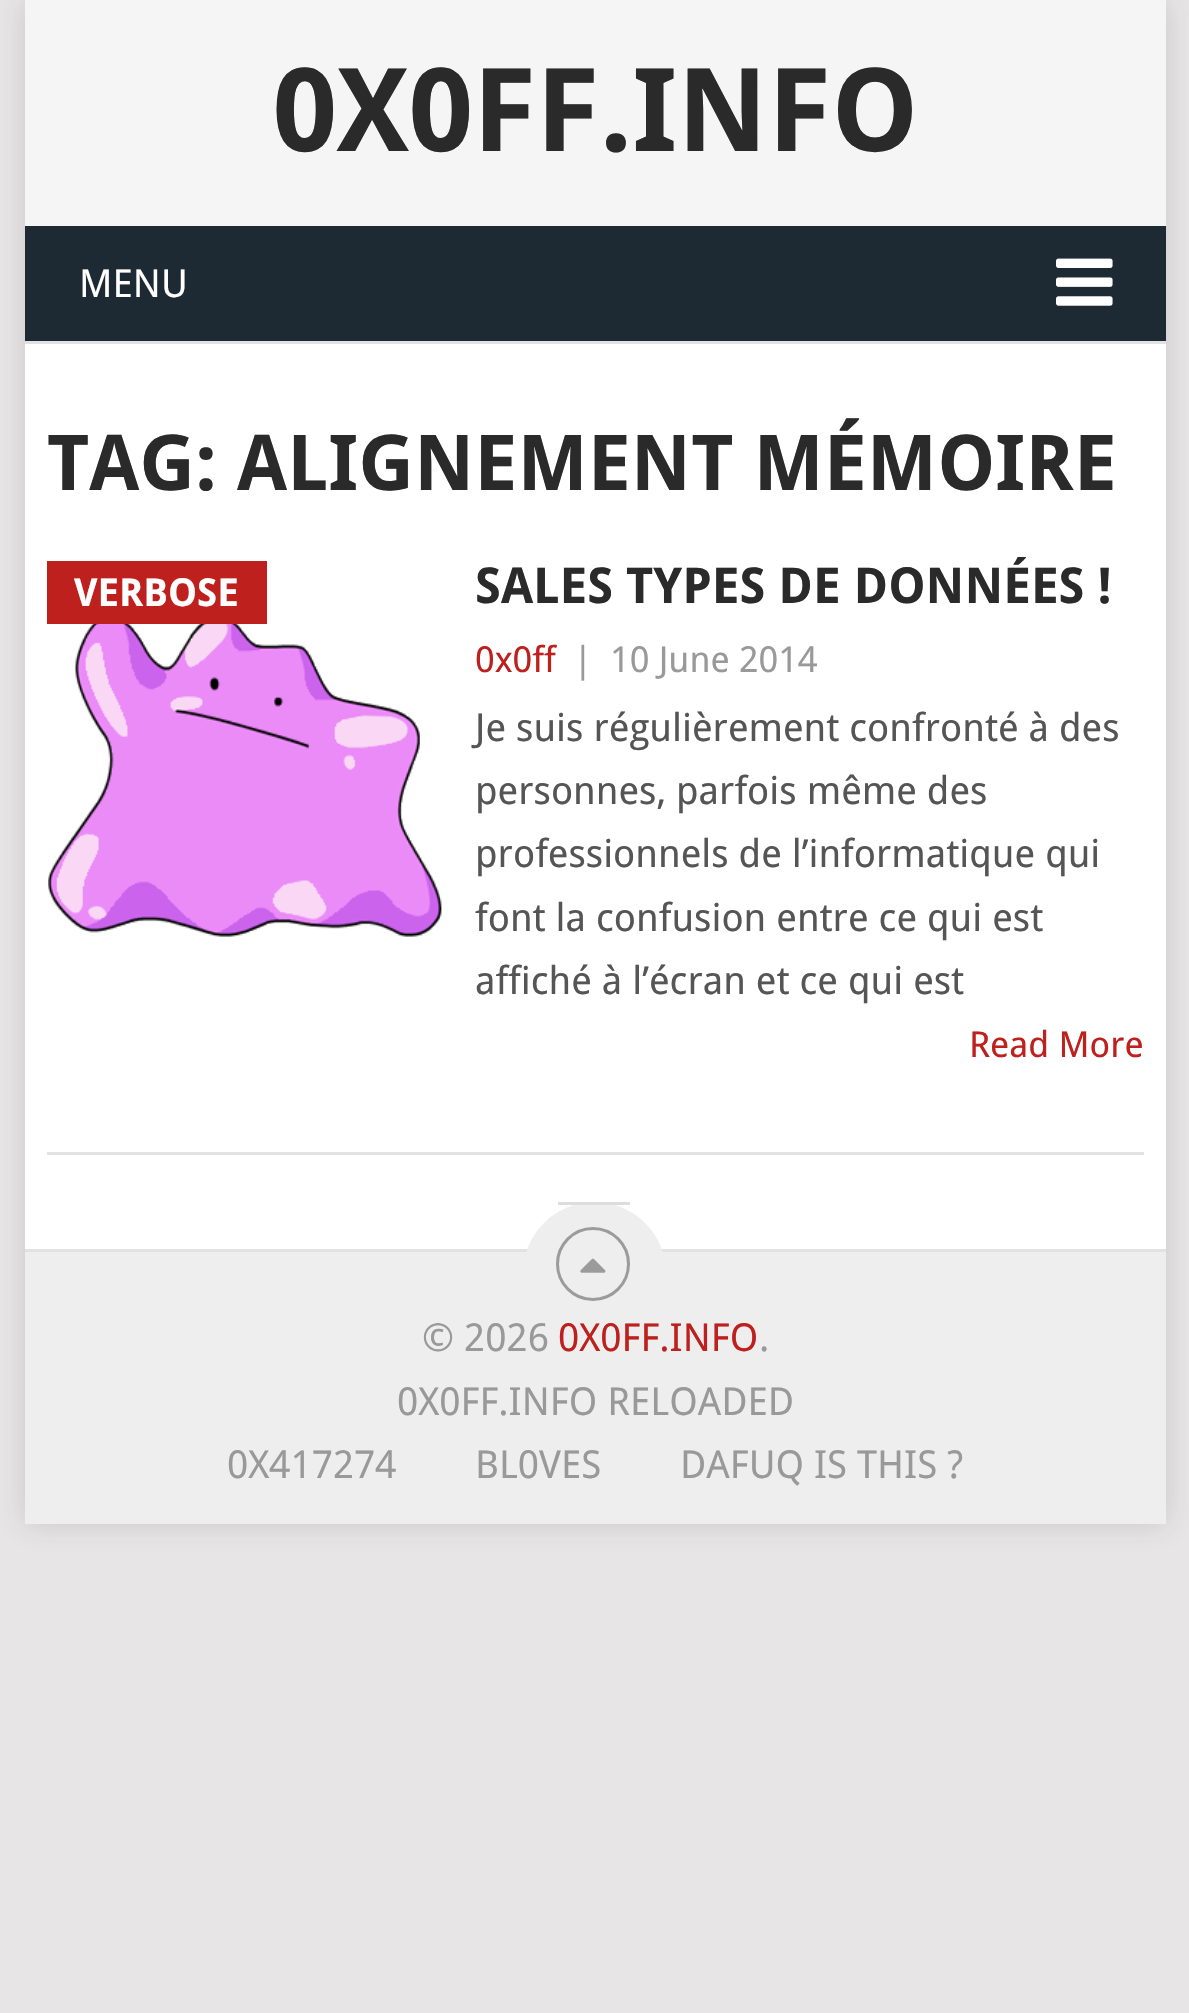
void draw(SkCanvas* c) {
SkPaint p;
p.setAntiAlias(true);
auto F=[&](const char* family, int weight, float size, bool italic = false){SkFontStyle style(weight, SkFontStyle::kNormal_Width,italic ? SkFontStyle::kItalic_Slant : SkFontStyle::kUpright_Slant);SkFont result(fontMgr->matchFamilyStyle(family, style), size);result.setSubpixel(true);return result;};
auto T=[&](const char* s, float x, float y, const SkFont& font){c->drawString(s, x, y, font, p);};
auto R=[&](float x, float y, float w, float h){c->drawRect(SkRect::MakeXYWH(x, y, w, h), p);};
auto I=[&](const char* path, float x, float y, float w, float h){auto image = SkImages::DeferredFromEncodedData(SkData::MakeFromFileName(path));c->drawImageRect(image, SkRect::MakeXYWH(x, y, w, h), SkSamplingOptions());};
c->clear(0xffe7e5e6);
p.setColor(0x2b323232);
p.setMaskFilter(SkMaskFilter::MakeBlur(kNormal_SkBlurStyle, 14));
c->drawRect(SkRect::MakeXYWH(25,0,1141,1524),p);
p.setMaskFilter(nullptr);
p.setColor(0xffffffff);
R(25,344,1141,905);
p.setColor(0xfff5f5f5);
R(25,0,1141,226);
auto f1 = F("Droid Sans",700,115.5);
p.setColor(0xff2a2a2a);
T("0X0FF.INFO",273,151,f1);
p.setColor(0xff1d2933);
R(25,226,1141,115);
auto f2 = F("Droid Sans",400,38.5);
p.setColor(0xffffffff);
T("MENU",79,297,f2);
I("1.png",1056,258,57,48);
p.setColor(0xffe2e2e2);
R(25,341,1141,3);
auto f3 = F("Droid Sans",700,77);
p.setColor(0xff2a2a2a);
T("TAG: ALIGNEMENT MÉMOIRE",47,490,f3);
p.setColor(0xffe2e2e2);
R(47,1152,1097,3);
I("2.png",48,615,394,322);
p.setColor(0xffbd201d);
R(47,561,220,63);
auto f4 = F("Droid Sans",700,38.5);
p.setColor(0xffffffff);
T("VERBOSE",74,606,f4);
auto f5 = F("Droid Sans",700,49.5);
p.setColor(0xff2a2a2a);
T("SALES TYPES DE DONNÉES !",475,603,f5);
auto f6 = F("Droid Sans",400,35.75);
p.setColor(0xffbd201d);
T("0x0ff",475,672,f6);
p.setColor(0xff999999);
T("|",573,672,f6);
T("10 June 2014",610,672,f6);
p.setColor(0xff555555);
T("Je suis régulièrement confronté à des",475,741,f2);
T("personnes, parfois même des",475,804,f2);
T("professionnels de l’informatique qui",475,867,f2);
T("font la confusion entre ce qui est",475,931,f2);
T("affiché à l’écran et ce qui est",475,994,f2);
p.setColor(0xffbd201d);
T("Read More",969,1057,f6);
p.setColor(0xffeeeeee);
R(25,1252,1141,272);
p.setColor(0xffe2e2e2);
R(25,1249,1141,3);
p.setColor(0xffeeeeee);
c->drawCircle(594.5,1273.5,71.5,p);
p.setColor(0xffdddddd);
R(558,1202,72,3);
p.setStroke(true);
p.setStrokeWidth(3);
p.setColor(0xff9b9b9b);
c->drawCircle(593,1264,35.5,p);
I("3.png",580,1258,26,15);
p.setStroke(false);
p.setColor(0xff999999);
T("© 2026",422,1351,f2);
p.setColor(0xffbd201d);
T("0X0FF.INFO",558,1351,f2);
p.setColor(0xff999999);
T(".",759,1351,f2);
T("0X0FF.INFO RELOADED",397,1415,f2);
T("0X417274",227,1478,f2);
T("BL0VES",475,1478,f2);
T("DAFUQ IS THIS ?",680,1478,f2);
}
